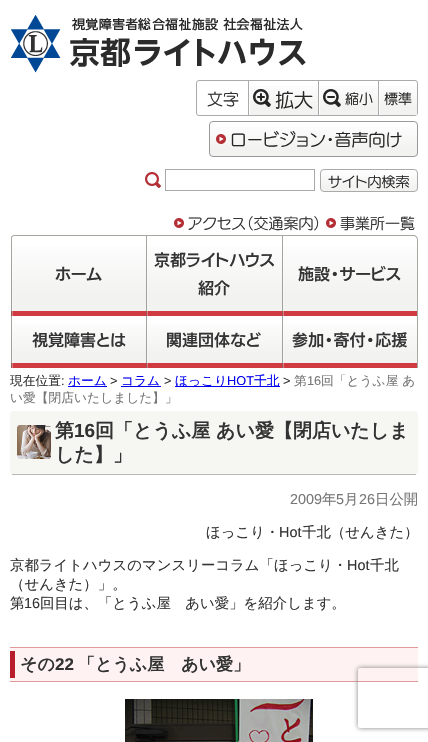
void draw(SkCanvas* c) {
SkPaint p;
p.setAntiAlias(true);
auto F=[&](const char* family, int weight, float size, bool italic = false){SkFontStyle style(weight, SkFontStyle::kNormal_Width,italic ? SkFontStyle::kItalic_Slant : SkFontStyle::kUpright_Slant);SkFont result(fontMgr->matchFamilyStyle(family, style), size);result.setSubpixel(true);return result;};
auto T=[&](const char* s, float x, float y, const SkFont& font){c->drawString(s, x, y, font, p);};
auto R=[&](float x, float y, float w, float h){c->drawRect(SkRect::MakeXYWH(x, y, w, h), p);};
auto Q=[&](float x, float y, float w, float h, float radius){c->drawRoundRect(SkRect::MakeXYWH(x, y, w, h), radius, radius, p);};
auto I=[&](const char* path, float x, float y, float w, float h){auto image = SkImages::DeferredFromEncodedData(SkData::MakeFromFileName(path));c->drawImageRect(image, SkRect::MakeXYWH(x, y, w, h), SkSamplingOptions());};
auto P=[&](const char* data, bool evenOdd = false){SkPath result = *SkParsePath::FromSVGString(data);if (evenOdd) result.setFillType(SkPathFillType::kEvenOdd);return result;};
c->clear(0xffffffff);
I("1.png",11,15,295,58);
p.setStroke(true);
p.setStrokeWidth(1);
p.setColor(0xffaaaaaa);
c->drawRoundRect(SkRect::MakeXYWH(196.5,80.5,221,35),2.5,2.5,p);
auto f1 = F("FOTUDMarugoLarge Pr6",500,16);
p.setStroke(false);
p.setColor(0xff333333);
T("文字",207,105,f1);
{
const SkColor colors[] = {0xffffffff,0xfff2f2f1};
const float stops[] = {0,.8};
const SkPoint ends[] = {{284,81}, {284,115}};
p.setShader(SkGradientShader::MakeLinear(ends, colors, stops, 2, SkTileMode::kClamp));
p.setAlpha(255);
}
R(250,86,68,29);
p.setShader(nullptr);
p.setColor(0xffaaaaaa);
R(248,81,1,34);
I("2.png",253,89,18,18);
p.setColor(0xff252525);
Q(257,96,8,2,1);
Q(260,93,2,8,1);
auto f2 = F("FOTUDMarugoLarge Pr6",500,19);
T("拡大",275,107,f2);
{
const SkColor colors[] = {0xffffffff,0xfff2f2f1};
const float stops[] = {0,.8};
const SkPoint ends[] = {{349,81}, {349,115}};
p.setShader(SkGradientShader::MakeLinear(ends, colors, stops, 2, SkTileMode::kClamp));
p.setAlpha(255);
}
R(320,86,58,29);
p.setShader(nullptr);
p.setColor(0xffaaaaaa);
R(318,81,1,34);
I("2.png",323,89,18,18);
p.setColor(0xff252525);
Q(327,96,8,2,1);
auto f3 = F("FOTUDMarugoLarge Pr6",500,14);
T("縮小",345,104,f3);
{
const SkColor colors[] = {0x00f2f2f1,0xfff2f2f1};
const float stops[] = {0,.8};
const SkPoint ends[] = {{398,81}, {398,115}};
p.setShader(SkGradientShader::MakeLinear(ends, colors, stops, 2, SkTileMode::kClamp));
p.setAlpha(255);
}
R(380,86,37,29);
p.setShader(nullptr);
p.setColor(0xffaaaaaa);
R(378,81,1,34);
p.setColor(0xff252525);
T("標準",384,104,f3);
c->save();
c->clipPath(P("M213 121h201c2 0 4 2 4 4v28c0 2-2 4-4 4h-201c-2 0-4-2-4-4v-28c0-2 2-4 4-4z"),true);
{
const SkColor colors[] = {0xffffffff,0xfff2f2f1};
const float stops[] = {0,.8};
const SkPoint ends[] = {{314,122}, {314,156}};
p.setShader(SkGradientShader::MakeLinear(ends, colors, stops, 2, SkTileMode::kClamp));
p.setAlpha(255);
}
R(209,122,209,34);
c->restore();
p.setStroke(true);
p.setShader(nullptr);
p.setColor(0xff999999);
c->drawRoundRect(SkRect::MakeXYWH(209.5,121.5,208,35),3.5,3.5,p);
I("3.png",216,134,10,10);
auto f4 = F("FOTUDMarugoLarge Pr6",500,17);
p.setStroke(false);
p.setColor(0xff252525);
T("ロービジョン・音声向け",230,146,f4);
I("4.png",145,172,16,16);
p.setStroke(true);
p.setColor(0xffaaaaaa);
c->drawRect(SkRect::MakeXYWH(165.5,169.5,149,21),p);
c->save();
c->clipPath(P("M324 169h90c2 0 4 2 4 4v15c0 2-2 4-4 4h-90c-2 0-4-2-4-4v-15c0-2 2-4 4-4z"),true);
p.setStroke(false);
{
const SkColor colors[] = {0xffffffff,0xfff2f2f1};
const float stops[] = {0,.8};
const SkPoint ends[] = {{369,170}, {369,191}};
p.setShader(SkGradientShader::MakeLinear(ends, colors, stops, 2, SkTileMode::kClamp));
p.setAlpha(255);
}
R(320,170,98,21);
c->restore();
p.setStroke(true);
p.setShader(nullptr);
p.setColor(0xffaaaaaa);
c->drawRoundRect(SkRect::MakeXYWH(320.5,169.5,97,22),3.5,3.5,p);
p.setStroke(false);
p.setColor(0xff252525);
T("サイト内検索",328,187,f3);
p.setColor(0xffa8a8a2);
c->drawPath(P("M15 235h398c3 0 5 2 5 5v128h-408v-128c0-3 2-5 5-5zm0 1h398c2 0 4 2 4 4v128h-406v-128c0-2 2-4 4-4z",true),p);
p.setColor(0xffffffff);
R(10,237,1,131);
I("5.png",174,218,10,10);
auto f5 = F("FOTUDMarugoLarge Pr6",500,15);
p.setColor(0xff333333);
T("アクセス（交通案内）",188,229,f5);
I("5.png",326,218,10,10);
T("事業所一覧",340,229,f5);
p.setColor(0xffffffff);
c->drawPath(P("M15 236h131v80h-135v-76c0-2 2-4 4-4z"),p);
{
const SkColor colors[] = {0x00f2f2f1,0xfff2f2f1};
const float stops[] = {0,.8};
const SkPoint ends[] = {{79,236}, {79,311}};
p.setShader(SkGradientShader::MakeLinear(ends, colors, stops, 2, SkTileMode::kClamp));
p.setAlpha(255);
}
R(11,246,135,65);
p.setShader(nullptr);
p.setColor(0xffd03a41);
R(11,311,271,5);
I("6.png",11,236,2,80);
auto f6 = F("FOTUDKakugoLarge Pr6",600,16);
p.setColor(0xff333333);
T("ホーム",55,280,f6);
{
const SkColor colors[] = {0xffffffff,0xfff2f2f1};
const float stops[] = {0,.8};
const SkPoint ends[] = {{214,236}, {214,311}};
p.setShader(SkGradientShader::MakeLinear(ends, colors, stops, 2, SkTileMode::kClamp));
p.setAlpha(255);
}
R(146,247,136,64);
I("7.png",146,236,2,80);
p.setShader(nullptr);
p.setColor(0xff333333);
T("京都ライトハウス",154,266,f6);
T("紹介",198,294,f6);
p.setColor(0xffffffff);
c->drawPath(P("M282 236h131c2 0 4 2 4 4v76h-135z"),p);
{
const SkColor colors[] = {0x00f2f2f1,0xfff2f2f1};
const float stops[] = {0,.8};
const SkPoint ends[] = {{350,236}, {350,311}};
p.setShader(SkGradientShader::MakeLinear(ends, colors, stops, 2, SkTileMode::kClamp));
p.setAlpha(255);
}
R(282,246,135,65);
p.setShader(nullptr);
p.setColor(0xffd03a41);
R(282,311,135,5);
I("8.png",282,236,2,80);
p.setColor(0xff333333);
T("施設・サービス",298,280,f6);
{
const SkColor colors[] = {0xffffffff,0xfff2f2f1};
const float stops[] = {0,.8};
const SkPoint ends[] = {{79,316}, {79,363}};
p.setShader(SkGradientShader::MakeLinear(ends, colors, stops, 2, SkTileMode::kClamp));
p.setAlpha(255);
}
R(11,323,135,40);
p.setShader(nullptr);
p.setColor(0xffd03a41);
R(11,363,406,5);
I("9.png",11,316,2,52);
p.setColor(0xff333333);
T("視覚障害とは",32,346,f6);
{
const SkColor colors[] = {0xffffffff,0xfff2f2f1};
const float stops[] = {0,.8};
const SkPoint ends[] = {{214,316}, {214,363}};
p.setShader(SkGradientShader::MakeLinear(ends, colors, stops, 2, SkTileMode::kClamp));
p.setAlpha(255);
}
R(146,323,136,40);
I("9.png",146,316,2,52);
p.setShader(nullptr);
p.setColor(0xff333333);
T("関連団体など",166,346,f6);
{
const SkColor colors[] = {0xffffffff,0xfff2f2f1};
const float stops[] = {0,.8};
const SkPoint ends[] = {{350,316}, {350,363}};
p.setShader(SkGradientShader::MakeLinear(ends, colors, stops, 2, SkTileMode::kClamp));
p.setAlpha(255);
}
R(282,323,135,40);
I("9.png",282,316,2,52);
p.setShader(nullptr);
p.setColor(0xff333333);
T("参加・寄付・応援",292,346,f6);
auto f7 = F("WenQuanYi Zen Hei",500,12.75);
T("現在位置",10,385,f7);
auto f8 = F("Liberation Sans",400,12.75);
T(":",61,385,f8);
p.setColor(0xff0000ee);
R(68,386,39,1);
T("ホーム",68,385,f7);
p.setColor(0xff333333);
T(">",110,385,f8);
p.setColor(0xff0000ee);
R(121,386,40,1);
T("コラム",121,385,f7);
p.setColor(0xff333333);
T(">",164,385,f8);
p.setColor(0xff0000ee);
R(175,386,105,1);
T("ほっこり",175,385,f7);
T("HOT",227,385,f8);
T("千北",254,385,f7);
p.setColor(0xff333333);
T(">",283,385,f8);
p.setColor(0xff767676);
T("第",294,385,f7);
T("16",307,385,f8);
T("回「とうふ屋 あ",321,385,f7);
T("い愛【閉店いたしました】」",10,402,f7);
p.setColor(0xfff6f6f2);
Q(10,411,408,64,4);
I("10.png",17,425,34,34);
p.setColor(0xffb9b8b5);
R(12,474,404,1);
auto f9 = F("WenQuanYi Zen Hei",700,19);
p.setColor(0xff333333);
T("第",55,437,f9);
auto f10 = F("Liberation Sans",700,19);
T("16",74,437,f10);
T("回「とうふ屋 あい愛【閉店いたしま",95,437,f9);
T("した】」",55,461,f9);
auto f11 = F("Liberation Sans",400,14.4);
p.setColor(0xff767676);
T("2009",290,504,f11);
auto f12 = F("WenQuanYi Zen Hei",500,14.4);
T("年",322,504,f12);
T("5",336,504,f11);
T("月",344,504,f12);
T("26",359,504,f11);
T("日公開",375,504,f12);
p.setColor(0xff333333);
T("ほっこり・",206,537,f12);
T("Hot",279,537,f11);
T("千北（せんきた）",302,537,f12);
T("京都ライトハウスのマンスリーコラム「ほっこり・",10,570,f12);
T("Hot",347,570,f11);
T("千北",370,570,f12);
T("（せんきた）」。",10,589,f12);
T("第",10,608,f12);
T("16",24,608,f11);
T("回目は、「とうふ屋　あい愛」を紹介します。",40,608,f12);
p.setColor(0xfffef2f2);
R(10,648,408,33);
p.setColor(0xffe19a9b);
R(10,647,408,1);
R(10,681,408,1);
p.setColor(0xffb81d2b);
R(10,651,5,27);
auto f13 = F("WenQuanYi Zen Hei",700,17);
p.setColor(0xff333333);
T("その",20,670,f13);
auto f14 = F("Liberation Sans",700,17);
T("22",55,670,f14);
T("「とうふ屋　あい愛」",78,670,f13);
I("11.png",125,699,188,43);
c->save();
c->clipPath(P("M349 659h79v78h-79zm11 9h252c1 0 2 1 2 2v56c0 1-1 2-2 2h-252c-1 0-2-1-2-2v-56c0-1 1-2 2-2z",true),true);
p.setColor(0xff808080);
p.setMaskFilter(SkMaskFilter::MakeBlur(kNormal_SkBlurStyle, 2.5));
c->drawRoundRect(SkRect::MakeXYWH(358,668,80,60),2,2,p);
p.setMaskFilter(nullptr);
c->restore();
}
